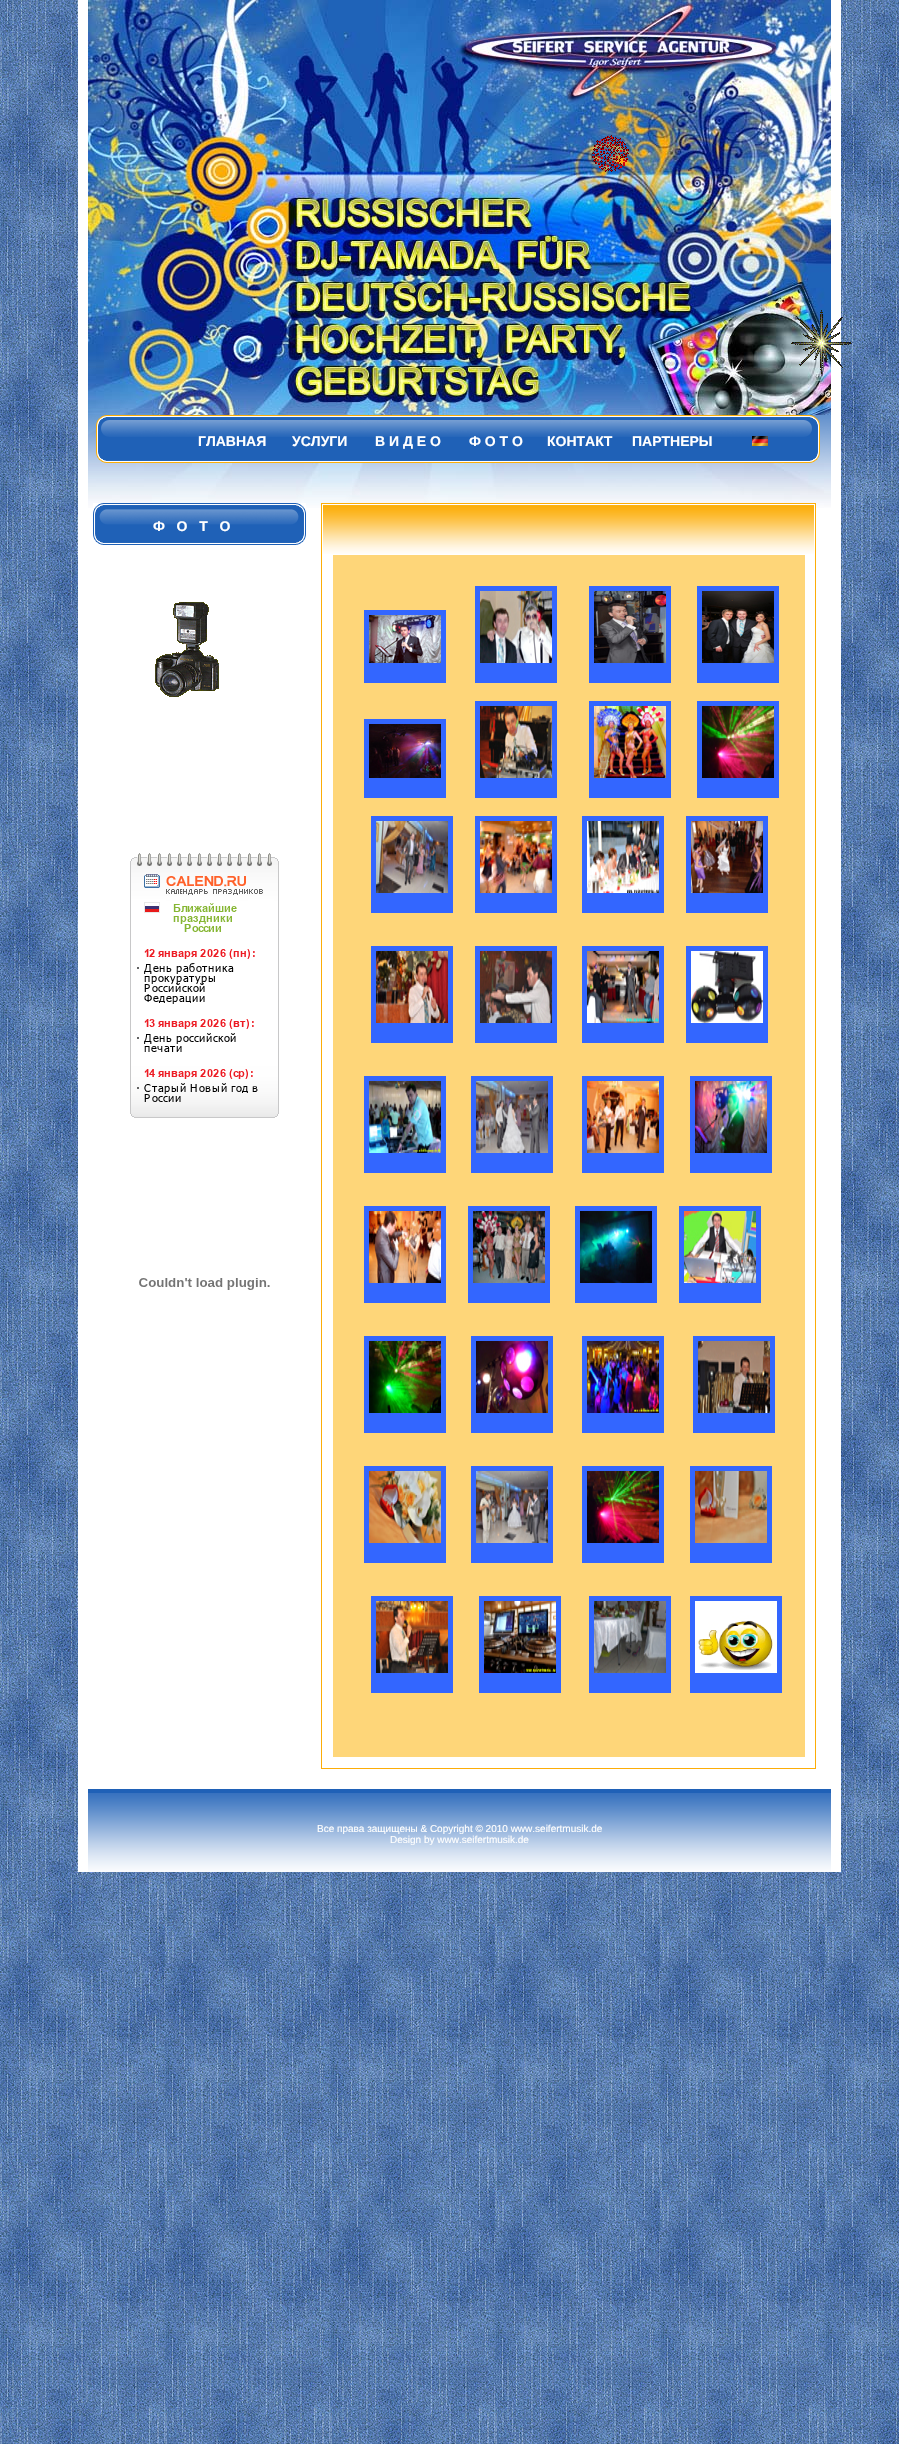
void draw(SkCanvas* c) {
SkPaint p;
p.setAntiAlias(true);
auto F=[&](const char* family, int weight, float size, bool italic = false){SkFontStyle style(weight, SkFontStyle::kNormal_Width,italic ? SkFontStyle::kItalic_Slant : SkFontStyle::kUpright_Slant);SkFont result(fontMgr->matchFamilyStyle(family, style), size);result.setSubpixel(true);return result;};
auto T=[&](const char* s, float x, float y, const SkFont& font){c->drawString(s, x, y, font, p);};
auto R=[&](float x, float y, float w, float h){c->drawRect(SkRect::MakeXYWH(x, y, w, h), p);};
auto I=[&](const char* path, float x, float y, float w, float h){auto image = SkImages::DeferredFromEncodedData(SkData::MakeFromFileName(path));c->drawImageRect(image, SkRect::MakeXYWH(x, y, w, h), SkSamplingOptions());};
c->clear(0xffffffff);
I("1.png",0,0,899,2444);
p.setColor(0xffffffff);
R(78,0,763,1872);
I("2.png",88,0,743,415);
I("3.png",592,135,37,37);
I("4.png",791,310,61,64);
I("5.png",88,415,743,48);
auto f1 = F("Liberation Sans",700,14);
T("ГЛАВНАЯ",198,446,f1);
T("УСЛУГИ",292,446,f1);
T("В И Д Е О",375,446,f1);
T("Ф О Т О",469,446,f1);
T("КОНТАКТ",547,446,f1);
T("ПАРТНЕРЫ",632,446,f1);
I("6.png",752,436,16,10);
I("7.png",88,463,743,45);
I("8.png",93,503,213,42);
T("Ф   О   Т   О",153,531,f1);
I("9.png",155,602,64,95);
p.setStroke(true);
p.setStrokeWidth(1);
p.setColor(0xfffcad08);
c->drawRect(SkRect::MakeXYWH(321.5,503.5,494,1265),p);
I("10.png",323,505,491,49);
p.setColor(0xffffffff);
c->drawRect(SkRect::MakeXYWH(322.5,504.5,492,1263),p);
p.setStroke(false);
p.setColor(0xfffed679);
R(333,555,472,1202);
p.setColor(0xff3366ff);
R(475,586,82,5);
R(475,586,5,97);
R(552,586,5,77);
R(589,586,82,5);
R(589,586,5,97);
R(666,586,5,77);
R(697,586,82,5);
R(364,610,82,5);
I("11.png",480,591,72,72);
I("12.png",594,591,72,72);
R(697,586,5,97);
I("13.png",702,591,72,72);
R(774,586,5,77);
R(364,610,5,73);
I("14.png",369,615,72,48);
R(441,610,5,53);
R(369,663,77,20);
R(480,663,77,20);
R(594,663,77,20);
R(702,663,77,20);
R(475,701,82,5);
R(475,701,5,97);
R(552,701,5,77);
R(589,701,82,5);
R(589,701,5,97);
R(666,701,5,77);
R(697,701,82,5);
R(364,719,82,5);
I("15.png",480,706,72,72);
I("16.png",594,706,72,72);
R(697,701,5,97);
I("17.png",702,706,72,72);
R(774,701,5,77);
R(364,719,5,79);
I("18.png",369,724,72,54);
R(441,719,5,59);
R(369,778,77,20);
R(480,778,77,20);
R(594,778,77,20);
R(702,778,77,20);
R(371,816,82,5);
R(371,816,5,97);
R(448,816,5,77);
R(475,816,82,5);
R(475,816,5,97);
R(552,816,5,77);
R(582,816,82,5);
R(582,816,5,97);
R(659,816,5,77);
R(686,816,82,5);
I("19.png",376,821,72,72);
I("20.png",480,821,72,72);
I("21.png",587,821,72,72);
R(686,816,5,97);
I("22.png",691,821,72,72);
R(763,816,5,77);
R(376,893,77,20);
R(480,893,77,20);
R(587,893,77,20);
R(691,893,77,20);
R(371,946,82,5);
R(371,946,5,97);
R(448,946,5,77);
R(475,946,82,5);
R(475,946,5,97);
R(552,946,5,77);
R(582,946,82,5);
R(582,946,5,97);
R(659,946,5,77);
R(686,946,82,5);
I("23.png",376,951,72,72);
I("24.png",480,951,72,72);
I("25.png",587,951,72,72);
R(686,946,5,97);
I("26.png",691,951,72,72);
R(763,946,5,77);
R(376,1023,77,20);
R(480,1023,77,20);
R(587,1023,77,20);
R(691,1023,77,20);
R(364,1076,82,5);
R(364,1076,5,97);
R(441,1076,5,77);
R(471,1076,82,5);
R(471,1076,5,97);
R(548,1076,5,77);
R(582,1076,82,5);
R(582,1076,5,97);
R(659,1076,5,77);
R(690,1076,82,5);
I("27.png",369,1081,72,72);
I("28.png",476,1081,72,72);
I("29.png",587,1081,72,72);
R(690,1076,5,97);
I("30.png",695,1081,72,72);
R(767,1076,5,77);
R(369,1153,77,20);
R(476,1153,77,20);
R(587,1153,77,20);
R(695,1153,77,20);
R(364,1206,82,5);
R(364,1206,5,97);
R(441,1206,5,77);
R(468,1206,82,5);
R(468,1206,5,97);
R(545,1206,5,77);
R(575,1206,82,5);
R(575,1206,5,97);
R(652,1206,5,77);
R(679,1206,82,5);
I("31.png",369,1211,72,72);
I("32.png",473,1211,72,72);
I("33.png",580,1211,72,72);
R(679,1206,5,97);
I("34.png",684,1211,72,72);
R(756,1206,5,77);
R(369,1283,77,20);
R(473,1283,77,20);
R(580,1283,77,20);
R(684,1283,77,20);
R(364,1336,82,5);
R(364,1336,5,97);
R(441,1336,5,77);
R(471,1336,82,5);
R(471,1336,5,97);
R(548,1336,5,77);
R(582,1336,82,5);
R(582,1336,5,97);
R(659,1336,5,77);
R(693,1336,82,5);
I("35.png",369,1341,72,72);
I("36.png",476,1341,72,72);
I("37.png",587,1341,72,72);
R(693,1336,5,97);
I("38.png",698,1341,72,72);
R(770,1336,5,77);
R(369,1413,77,20);
R(476,1413,77,20);
R(587,1413,77,20);
R(698,1413,77,20);
R(364,1466,82,5);
R(364,1466,5,97);
R(441,1466,5,77);
R(471,1466,82,5);
R(471,1466,5,97);
R(548,1466,5,77);
R(582,1466,82,5);
R(582,1466,5,97);
R(659,1466,5,77);
R(690,1466,82,5);
I("39.png",369,1471,72,72);
I("40.png",476,1471,72,72);
I("41.png",587,1471,72,72);
R(690,1466,5,97);
I("42.png",695,1471,72,72);
R(767,1466,5,77);
R(369,1543,77,20);
R(476,1543,77,20);
R(587,1543,77,20);
R(695,1543,77,20);
R(371,1596,82,5);
R(371,1596,5,97);
R(448,1596,5,77);
R(479,1596,82,5);
R(479,1596,5,97);
R(556,1596,5,77);
R(589,1596,82,5);
R(589,1596,5,97);
R(666,1596,5,77);
R(690,1596,92,5);
I("43.png",376,1601,72,72);
I("44.png",484,1601,72,72);
I("45.png",594,1601,72,72);
R(690,1596,5,97);
I("46.png",695,1601,82,72);
R(777,1596,5,77);
R(376,1673,77,20);
R(484,1673,77,20);
R(594,1673,77,20);
R(695,1673,87,20);
I("47.png",130,853,149,265);
I("48.png",139,1278,131,12);
I("49.png",88,1793,743,79);
p.setColor(0xff1f61b7);
R(88,1789,743,4);
auto f2 = F("Liberation Sans",400,10);
p.setColor(0xffffffff);
T("Все права защищены & Copyright © 2010 www.seifertmusik.de",317,1832,f2);
T("Design by www.seifertmusik.de",390,1843,f2);
}
